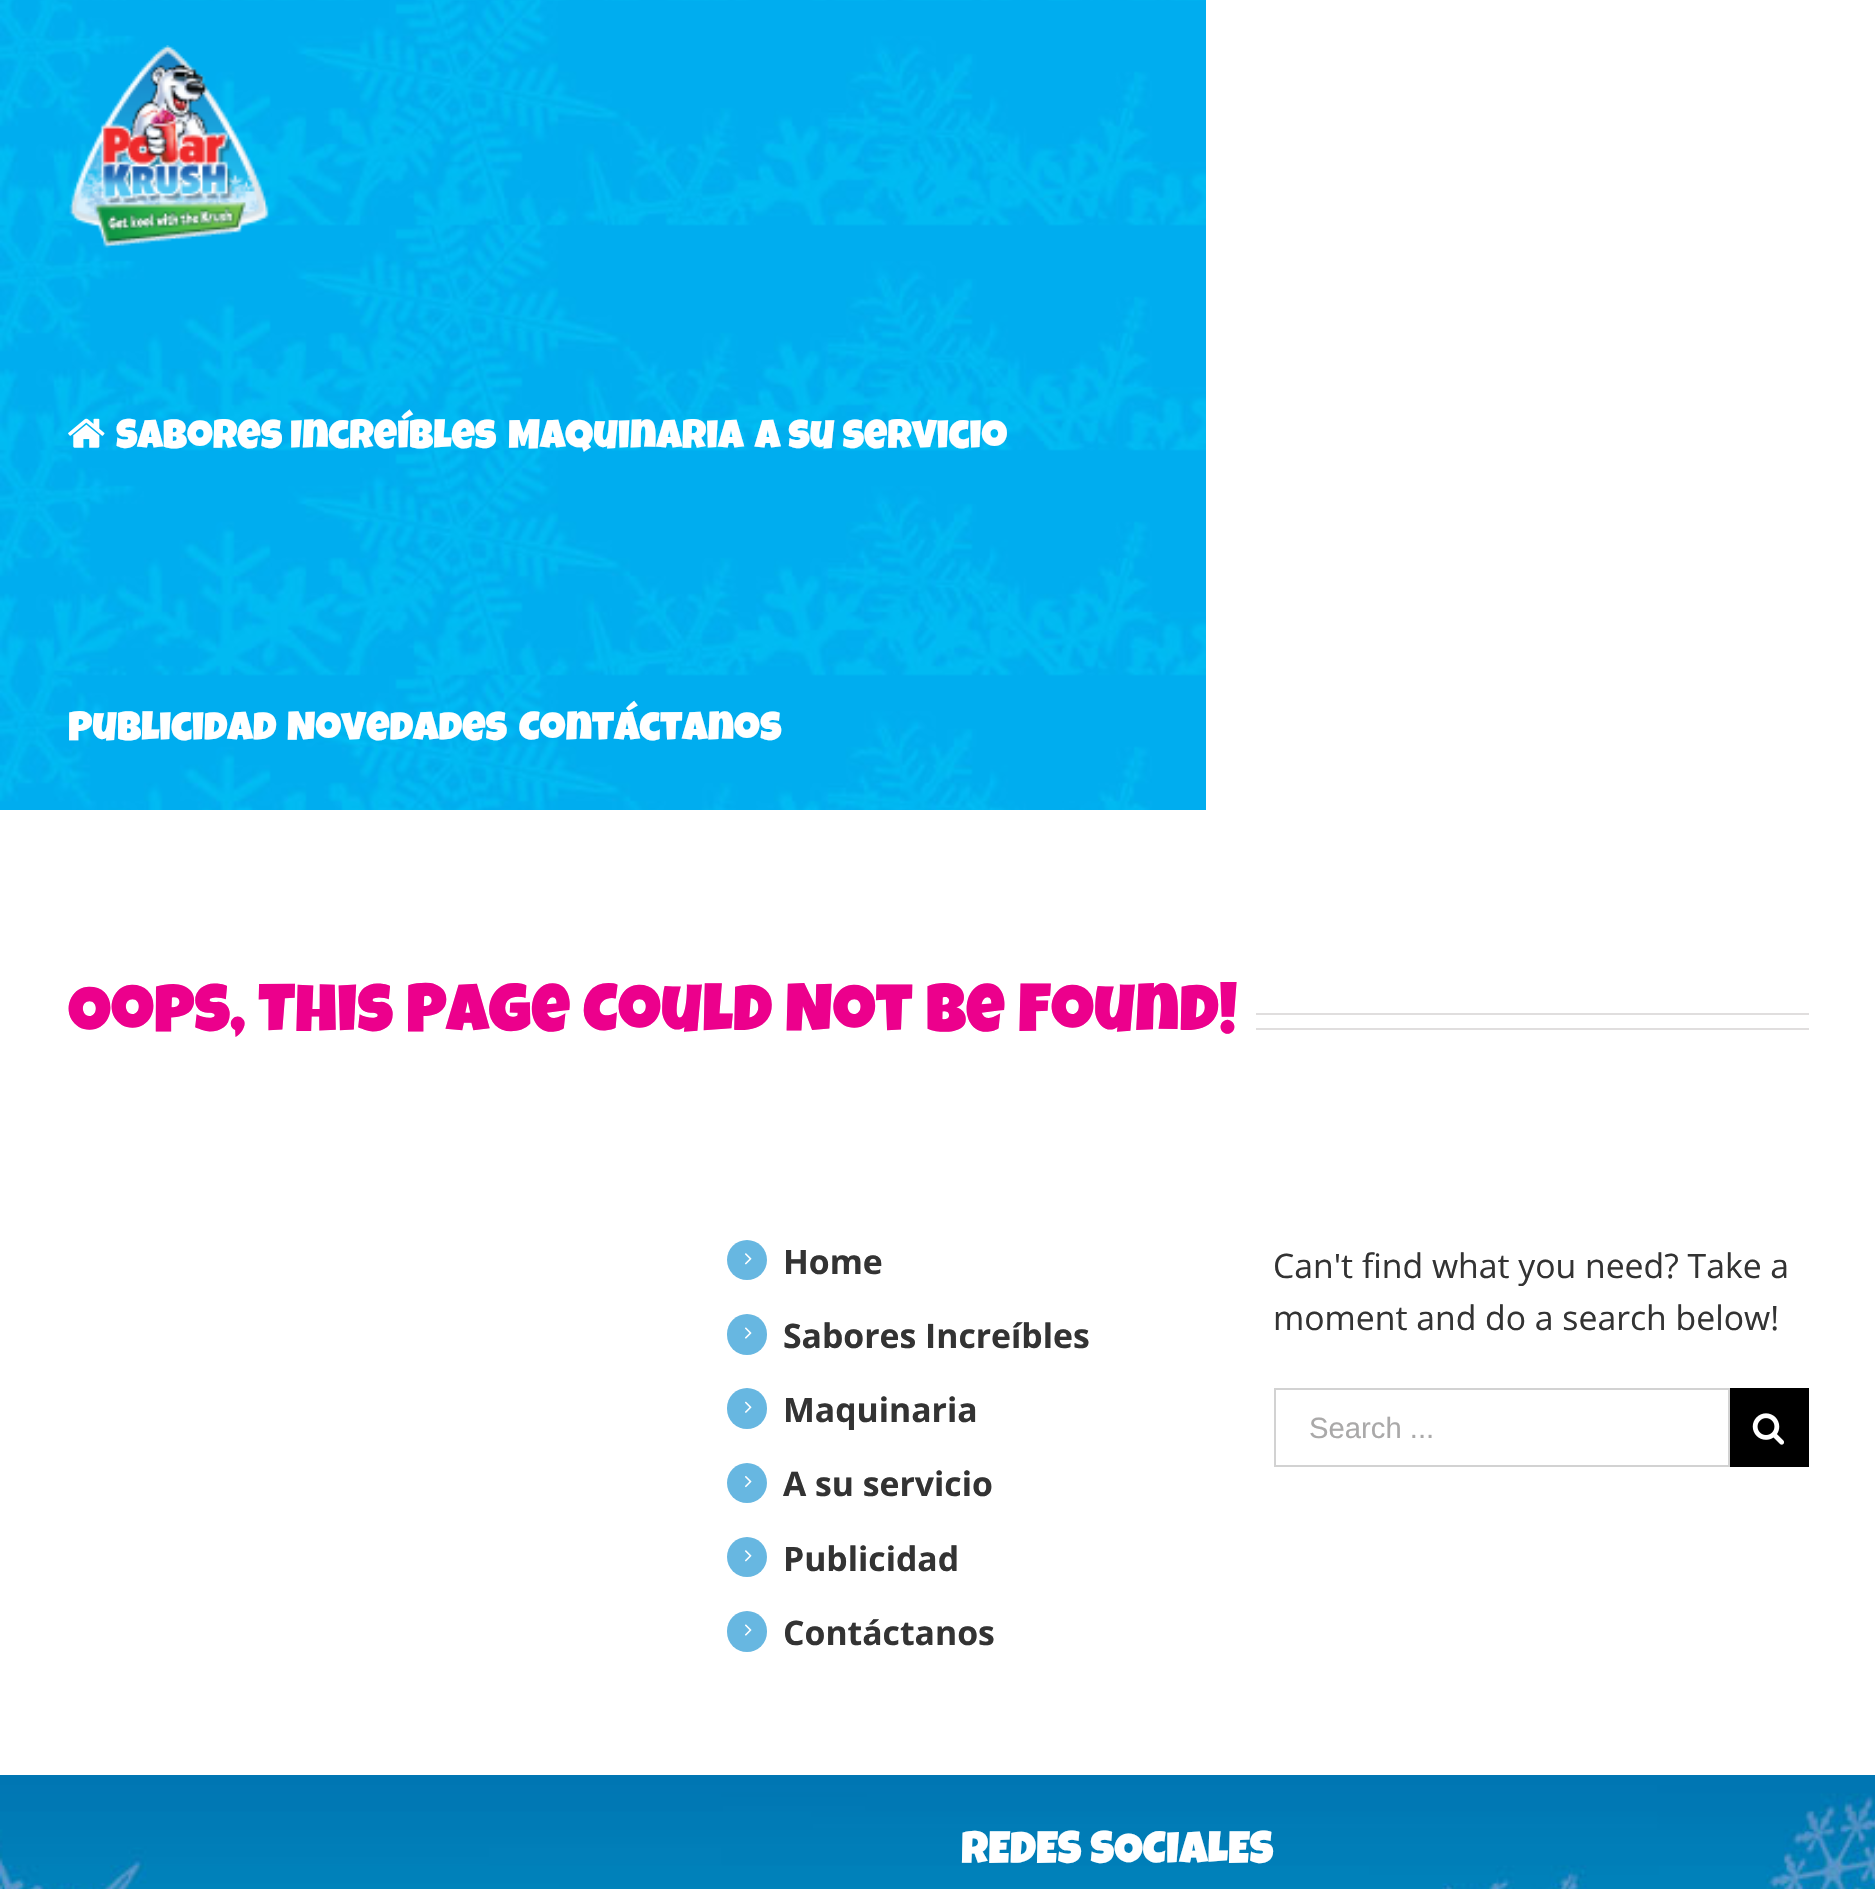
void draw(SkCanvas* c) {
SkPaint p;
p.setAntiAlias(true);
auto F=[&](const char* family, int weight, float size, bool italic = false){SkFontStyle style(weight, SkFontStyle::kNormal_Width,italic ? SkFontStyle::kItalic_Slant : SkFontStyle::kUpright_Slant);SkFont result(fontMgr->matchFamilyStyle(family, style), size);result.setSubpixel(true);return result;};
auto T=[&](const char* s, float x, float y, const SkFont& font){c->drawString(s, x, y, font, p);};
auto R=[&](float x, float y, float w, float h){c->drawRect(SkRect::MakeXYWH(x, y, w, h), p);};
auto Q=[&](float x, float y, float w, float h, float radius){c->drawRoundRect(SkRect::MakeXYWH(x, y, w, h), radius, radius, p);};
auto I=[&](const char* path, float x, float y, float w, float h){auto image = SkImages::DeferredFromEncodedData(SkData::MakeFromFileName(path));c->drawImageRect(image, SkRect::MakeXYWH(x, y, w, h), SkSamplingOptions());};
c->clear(0xffffffff);
I("1.png",0,0,1206,810);
I("2.png",69,45,200,203);
I("3.png",68,418,37,30);
auto f1 = F("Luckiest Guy",400,40.5);
p.setColor(0xffffffff);
T("Sabores Increíbles",116,448,f1);
T("Maquinaria",508,448,f1);
T("A su servicio",755,448,f1);
T("Publicidad",68,740,f1);
T("Novedades",287,740,f1);
T("Contáctanos",519,740,f1);
auto f2 = F("Luckiest Guy",400,67.5);
p.setColor(0xffec008c);
T("Oops, This Page Could Not Be Found!",68,1031,f2);
p.setColor(0xffe0dede);
R(1256,1013,553,2);
R(1256,1028,553,2);
p.setColor(0xff67b7e1);
c->drawCircle(747,1260,20,p);
I("4.png",745,1253,7,12);
auto f3 = F("Open Sans",700,33.75);
p.setColor(0xff333333);
T("Home",783,1274,f3);
p.setColor(0xff67b7e1);
Q(727,1314,40,41,20);
I("5.png",745,1327,7,12);
p.setColor(0xff333333);
T("Sabores Increíbles",783,1348,f3);
p.setColor(0xff67b7e1);
Q(727,1388,40,41,20);
I("6.png",745,1401,7,12);
p.setColor(0xff333333);
T("Maquinaria",783,1422,f3);
p.setColor(0xff67b7e1);
c->drawCircle(747,1483,20,p);
I("7.png",745,1476,7,12);
p.setColor(0xff333333);
T("A su servicio",783,1496,f3);
p.setColor(0xff67b7e1);
c->drawCircle(747,1557,20,p);
I("4.png",745,1550,7,12);
p.setColor(0xff333333);
T("Publicidad",783,1571,f3);
p.setColor(0xff67b7e1);
Q(727,1611,40,41,20);
I("5.png",745,1624,7,12);
p.setColor(0xff333333);
T("Contáctanos",783,1645,f3);
auto f4 = F("Open Sans",400,33.75);
T("Can't find what you need? Take a",1273,1278,f4);
T("moment and do a search below!",1273,1330,f4);
p.setStroke(true);
p.setStrokeWidth(2);
p.setColor(0xffd2d2d2);
c->drawRect(SkRect::MakeXYWH(1275,1389,454,77),p);
auto f5 = F("Liberation Sans",400,29.25);
p.setStroke(false);
p.setColor(0xffaaa9a9);
T("Search ...",1309,1438,f5);
p.setColor(0xff000000);
R(1730,1388,79,79);
I("8.png",1752,1413,32,32);
I("9.png",0,1775,1875,114);
auto f6 = F("Luckiest Guy",400,45);
p.setColor(0xffffffff);
T("REDES SOCIALES",961,1863,f6);
}
